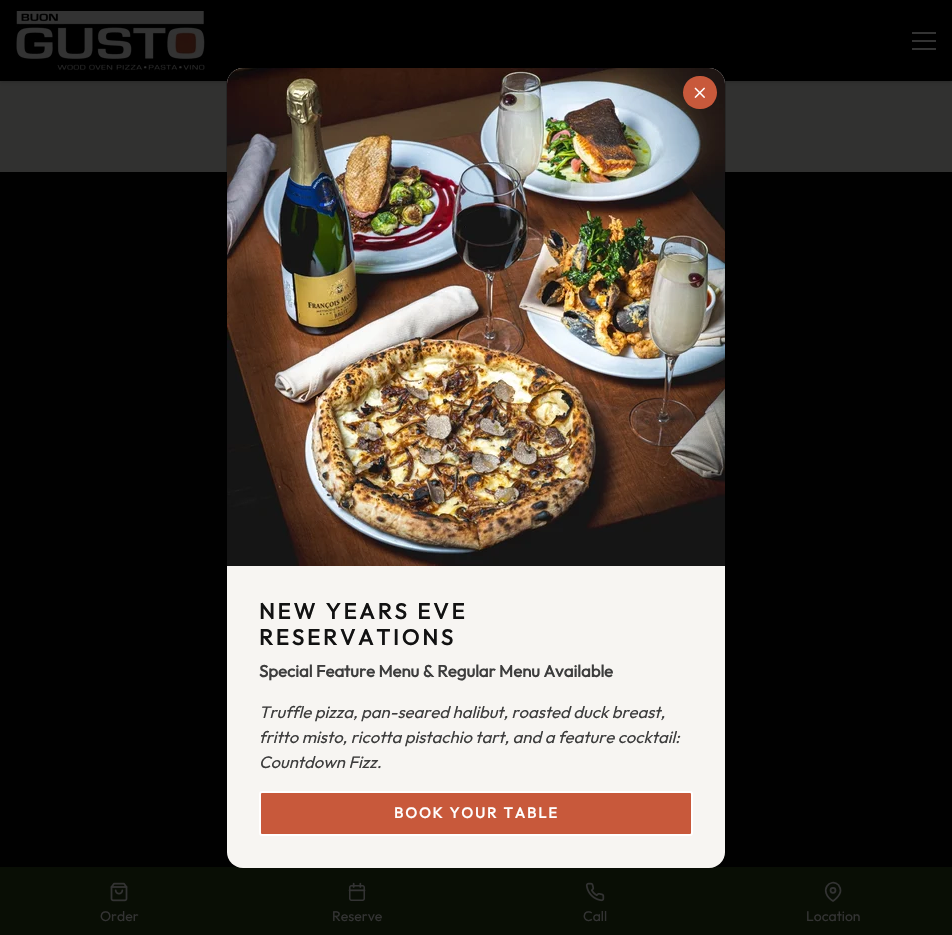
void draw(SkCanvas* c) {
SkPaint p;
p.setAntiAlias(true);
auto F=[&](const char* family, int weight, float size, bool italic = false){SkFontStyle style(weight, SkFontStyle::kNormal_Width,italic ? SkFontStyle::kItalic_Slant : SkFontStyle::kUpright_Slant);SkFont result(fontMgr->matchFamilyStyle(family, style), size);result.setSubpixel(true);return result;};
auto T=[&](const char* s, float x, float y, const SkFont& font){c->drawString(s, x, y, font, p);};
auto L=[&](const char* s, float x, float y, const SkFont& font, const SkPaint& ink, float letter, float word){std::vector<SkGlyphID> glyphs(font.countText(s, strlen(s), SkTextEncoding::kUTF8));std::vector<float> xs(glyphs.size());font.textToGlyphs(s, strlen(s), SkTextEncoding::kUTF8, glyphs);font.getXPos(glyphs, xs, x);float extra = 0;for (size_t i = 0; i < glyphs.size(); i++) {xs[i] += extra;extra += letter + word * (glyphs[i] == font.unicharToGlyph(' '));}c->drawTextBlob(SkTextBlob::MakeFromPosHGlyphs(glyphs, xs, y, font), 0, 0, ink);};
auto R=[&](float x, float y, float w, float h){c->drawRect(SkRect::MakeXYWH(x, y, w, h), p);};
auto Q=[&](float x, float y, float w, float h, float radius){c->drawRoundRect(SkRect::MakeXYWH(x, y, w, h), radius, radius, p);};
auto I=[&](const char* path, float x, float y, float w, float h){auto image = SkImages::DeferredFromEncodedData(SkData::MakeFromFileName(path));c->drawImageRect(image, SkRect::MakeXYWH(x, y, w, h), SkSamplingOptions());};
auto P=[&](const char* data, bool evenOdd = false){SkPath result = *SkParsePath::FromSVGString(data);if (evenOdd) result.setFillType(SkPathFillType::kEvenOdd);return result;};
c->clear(0xff313130);
p.setColor(0x4d000000);
p.setMaskFilter(SkMaskFilter::MakeBlur(kNormal_SkBlurStyle, 2.5));
c->drawRect(SkRect::MakeXYWH(0,0,952,81),p);
p.setMaskFilter(nullptr);
p.setColor(0xff000000);
R(0,0,952,81);
I("1.png",16,11,189,60);
p.setColor(0xff333333);
R(912,40,24,2);
R(912,32,24,2);
R(912,48,24,2);
p.setColor(0xff010101);
R(0,172,952,695);
p.setColor(0xff090e05);
R(0,867,952,68);
p.setStroke(true);
p.setStrokeWidth(1);
p.setColor(0x33000000);
c->drawRoundRect(SkRect::MakeXYWH(226.5,67.5,499,801),15.5,15.5,p);
p.setStroke(false);
p.setColor(0xfff7f5f2);
Q(227,68,498,800,16);
p.setColor(0x1a3d3d3d);
c->drawPath(P("M243 68h466c9 0 16 7 16 16v482h-498v-482c0-9 7-16 16-16z"),p);
I("2.png",227,68,498,498);
p.setColor(0xffc8593b);
Q(683,76,34,33,16.5);
I("3.png",694,87,11,11);
auto f1 = F("Outfit",700,22);
p.setColor(0xff121212);
L("NEW YEARS EVE",259,619,f1,p,3,0);
L("RESERVATIONS",259,645,f1,p,3,0);
auto f2 = F("Outfit",700,16.75);
p.setColor(0xff3d3d3d);
T("Special Feature Menu & Regular Menu Available",259,677,f2);
auto f3 = F("Outfit",100,16.75,true);
T("Truffle pizza, pan-seared halibut, roasted duck breast,",259,718,f3);
T("fritto misto, ricotta pistachio tart, and a feature cocktail:",259,743,f3);
T("Countdown Fizz.",259,768,f3);
p.setColor(0xffc8593b);
c->drawRoundRect(SkRect::MakeXYWH(260,792,432,43),2,2,p);
p.setStroke(true);
p.setStrokeWidth(2);
p.setColor(0xffffffff);
c->drawRoundRect(SkRect::MakeXYWH(260,792,432,43),2,2,p);
auto f4 = F("Outfit",700,14.75);
p.setStroke(false);
L("BOOK YOUR TABLE",394,818,f4,p,2,0);
I("4.png",110,882,18,20);
auto f5 = F("Outfit",100,14);
p.setColor(0xff333333);
T("Order",100,921,f5);
I("5.png",348,882,18,19);
T("Reserve",332,921,f5);
I("6.png",585,882,20,20);
T("Call",583,921,f5);
p.setStroke(true);
p.setStrokeWidth(1.7);
p.setStrokeCap(SkPaint::kRound_Cap);
p.setStrokeJoin(SkPaint::kRound_Join);
c->drawPath(P("M840.5 890.5c0 5.5-7.5 10.5-7.5 10.5c-15.5-10-2.5-24 5.5-16c1 1.5 2 3.5 2 5.5z"),p);
p.setStrokeCap(SkPaint::kButt_Cap);
p.setStrokeJoin(SkPaint::kMiter_Join);
c->drawCircle(833,890.3,2.5,p);
p.setStroke(false);
T("Location",806,921,f5);
}
